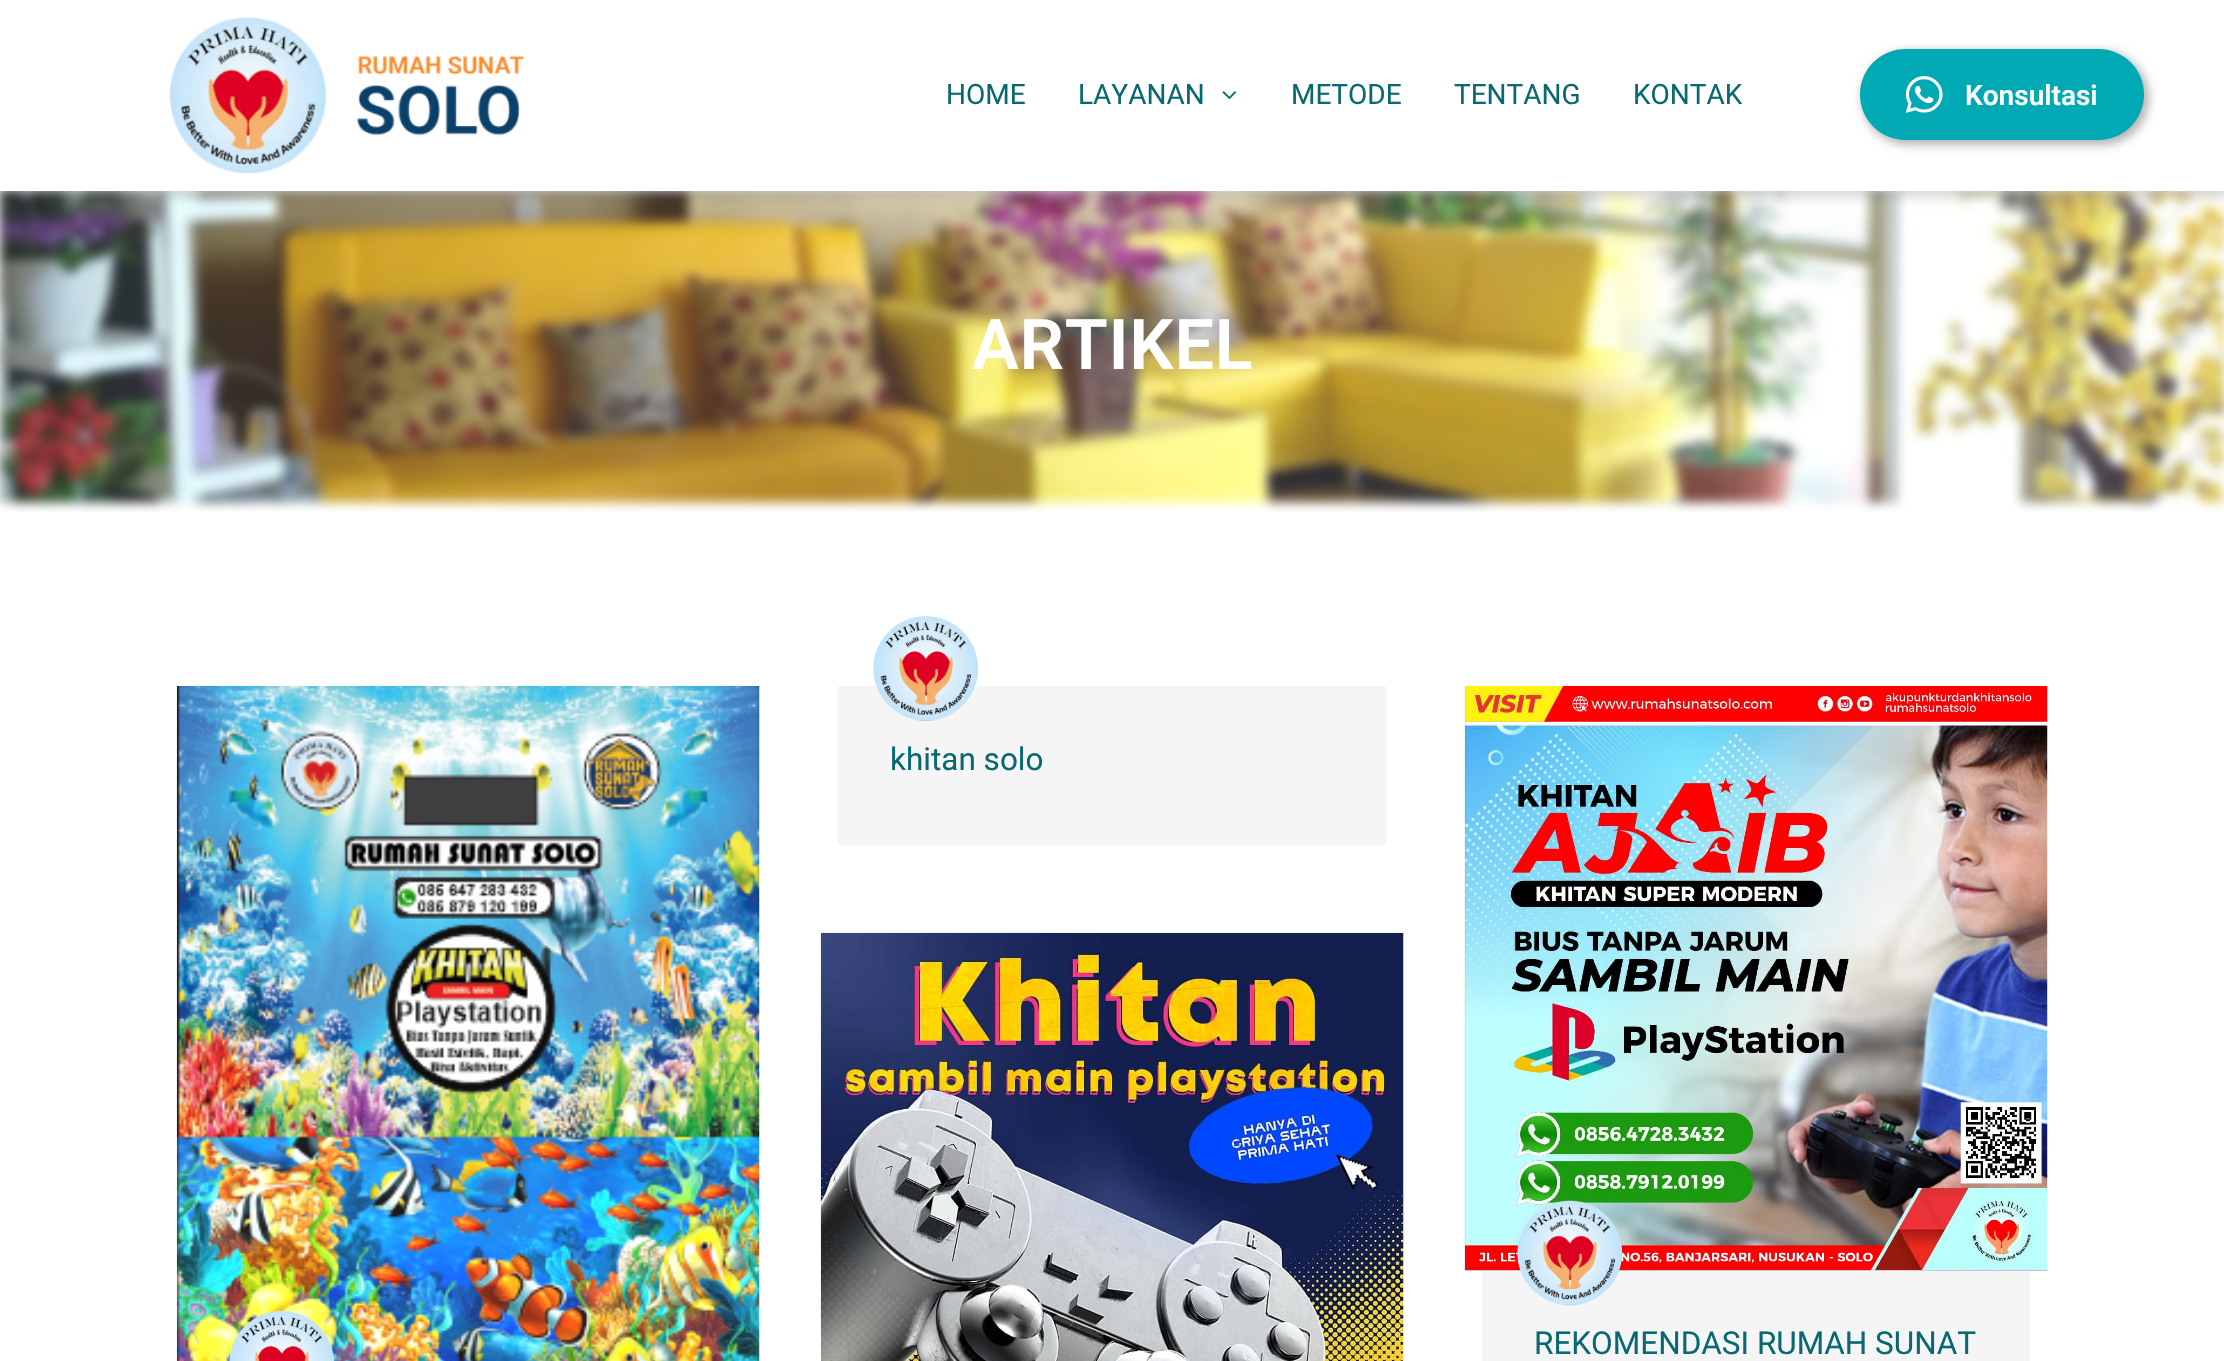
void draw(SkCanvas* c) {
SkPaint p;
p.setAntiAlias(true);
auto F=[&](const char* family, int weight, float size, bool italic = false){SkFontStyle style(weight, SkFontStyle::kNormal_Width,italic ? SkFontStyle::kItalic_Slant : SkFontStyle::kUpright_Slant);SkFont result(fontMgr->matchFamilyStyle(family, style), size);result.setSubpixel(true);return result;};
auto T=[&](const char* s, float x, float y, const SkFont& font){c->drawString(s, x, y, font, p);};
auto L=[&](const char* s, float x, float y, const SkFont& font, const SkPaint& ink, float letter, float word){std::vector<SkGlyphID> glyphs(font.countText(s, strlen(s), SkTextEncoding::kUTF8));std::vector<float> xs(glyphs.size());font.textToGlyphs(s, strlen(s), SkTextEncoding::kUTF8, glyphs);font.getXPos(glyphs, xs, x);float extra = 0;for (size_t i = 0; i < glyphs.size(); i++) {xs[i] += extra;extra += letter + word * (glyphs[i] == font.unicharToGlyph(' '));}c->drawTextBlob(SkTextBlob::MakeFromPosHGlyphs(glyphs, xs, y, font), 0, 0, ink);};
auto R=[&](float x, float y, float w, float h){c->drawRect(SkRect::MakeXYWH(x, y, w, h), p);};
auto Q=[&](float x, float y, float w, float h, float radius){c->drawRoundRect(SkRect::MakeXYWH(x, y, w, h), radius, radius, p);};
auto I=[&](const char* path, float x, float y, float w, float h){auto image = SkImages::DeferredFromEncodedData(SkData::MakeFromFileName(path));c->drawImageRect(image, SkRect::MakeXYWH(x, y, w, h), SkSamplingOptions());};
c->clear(0xffffffff);
I("4.png",0,191,2224,321);
p.setColor(0x24000000);
p.setMaskFilter(SkMaskFilter::MakeBlur(kNormal_SkBlurStyle, 4.5));
c->drawRect(SkRect::MakeXYWH(-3,0,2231,198),p);
p.setMaskFilter(nullptr);
p.setColor(0xffffffff);
R(0,0,2224,191);
I("1.png",169,17,355,157);
auto f1 = F("Roboto",400,28);
p.setColor(0xff086972);
T("HOME",946,104,f1);
T("LAYANAN",1078,104,f1);
I("2.png",1222,91,15,9);
T("METODE",1291,104,f1);
T("TENTANG",1454,104,f1);
T("KONTAK",1633,104,f1);
p.setColor(0x4a000000);
p.setMaskFilter(SkMaskFilter::MakeBlur(kNormal_SkBlurStyle, 5));
c->drawRoundRect(SkRect::MakeXYWH(1862,51,287,94),47,47,p);
p.setMaskFilter(nullptr);
p.setColor(0xff01a9b4);
Q(1860,49,284,91,45.5);
I("3.png",1905,76,38,37);
auto f2 = F("Roboto",600,28);
p.setColor(0xffffffff);
T("Konsultasi",1965,105,f2);
auto f3 = F("Roboto",600,70);
L("ARTIKEL",972,369,f3,p,.75,0);
I("5.png",176,686,584,675);
I("6.png",229,1310,105,51);
p.setColor(0xfff5f5f5);
R(838,686,548,159);
I("7.png",873,616,105,105);
auto f4 = F("Roboto",400,31.5);
p.setColor(0xff086972);
T("khitan solo",890,770,f4);
I("8.png",820,932,584,429);
I("9.png",1464,686,584,585);
p.setColor(0xfff5f5f5);
R(1482,1271,548,90);
I("10.png",1517,1200,106,106);
p.setColor(0xff086972);
T("REKOMENDASI RUMAH SUNAT",1534,1354,f4);
}
